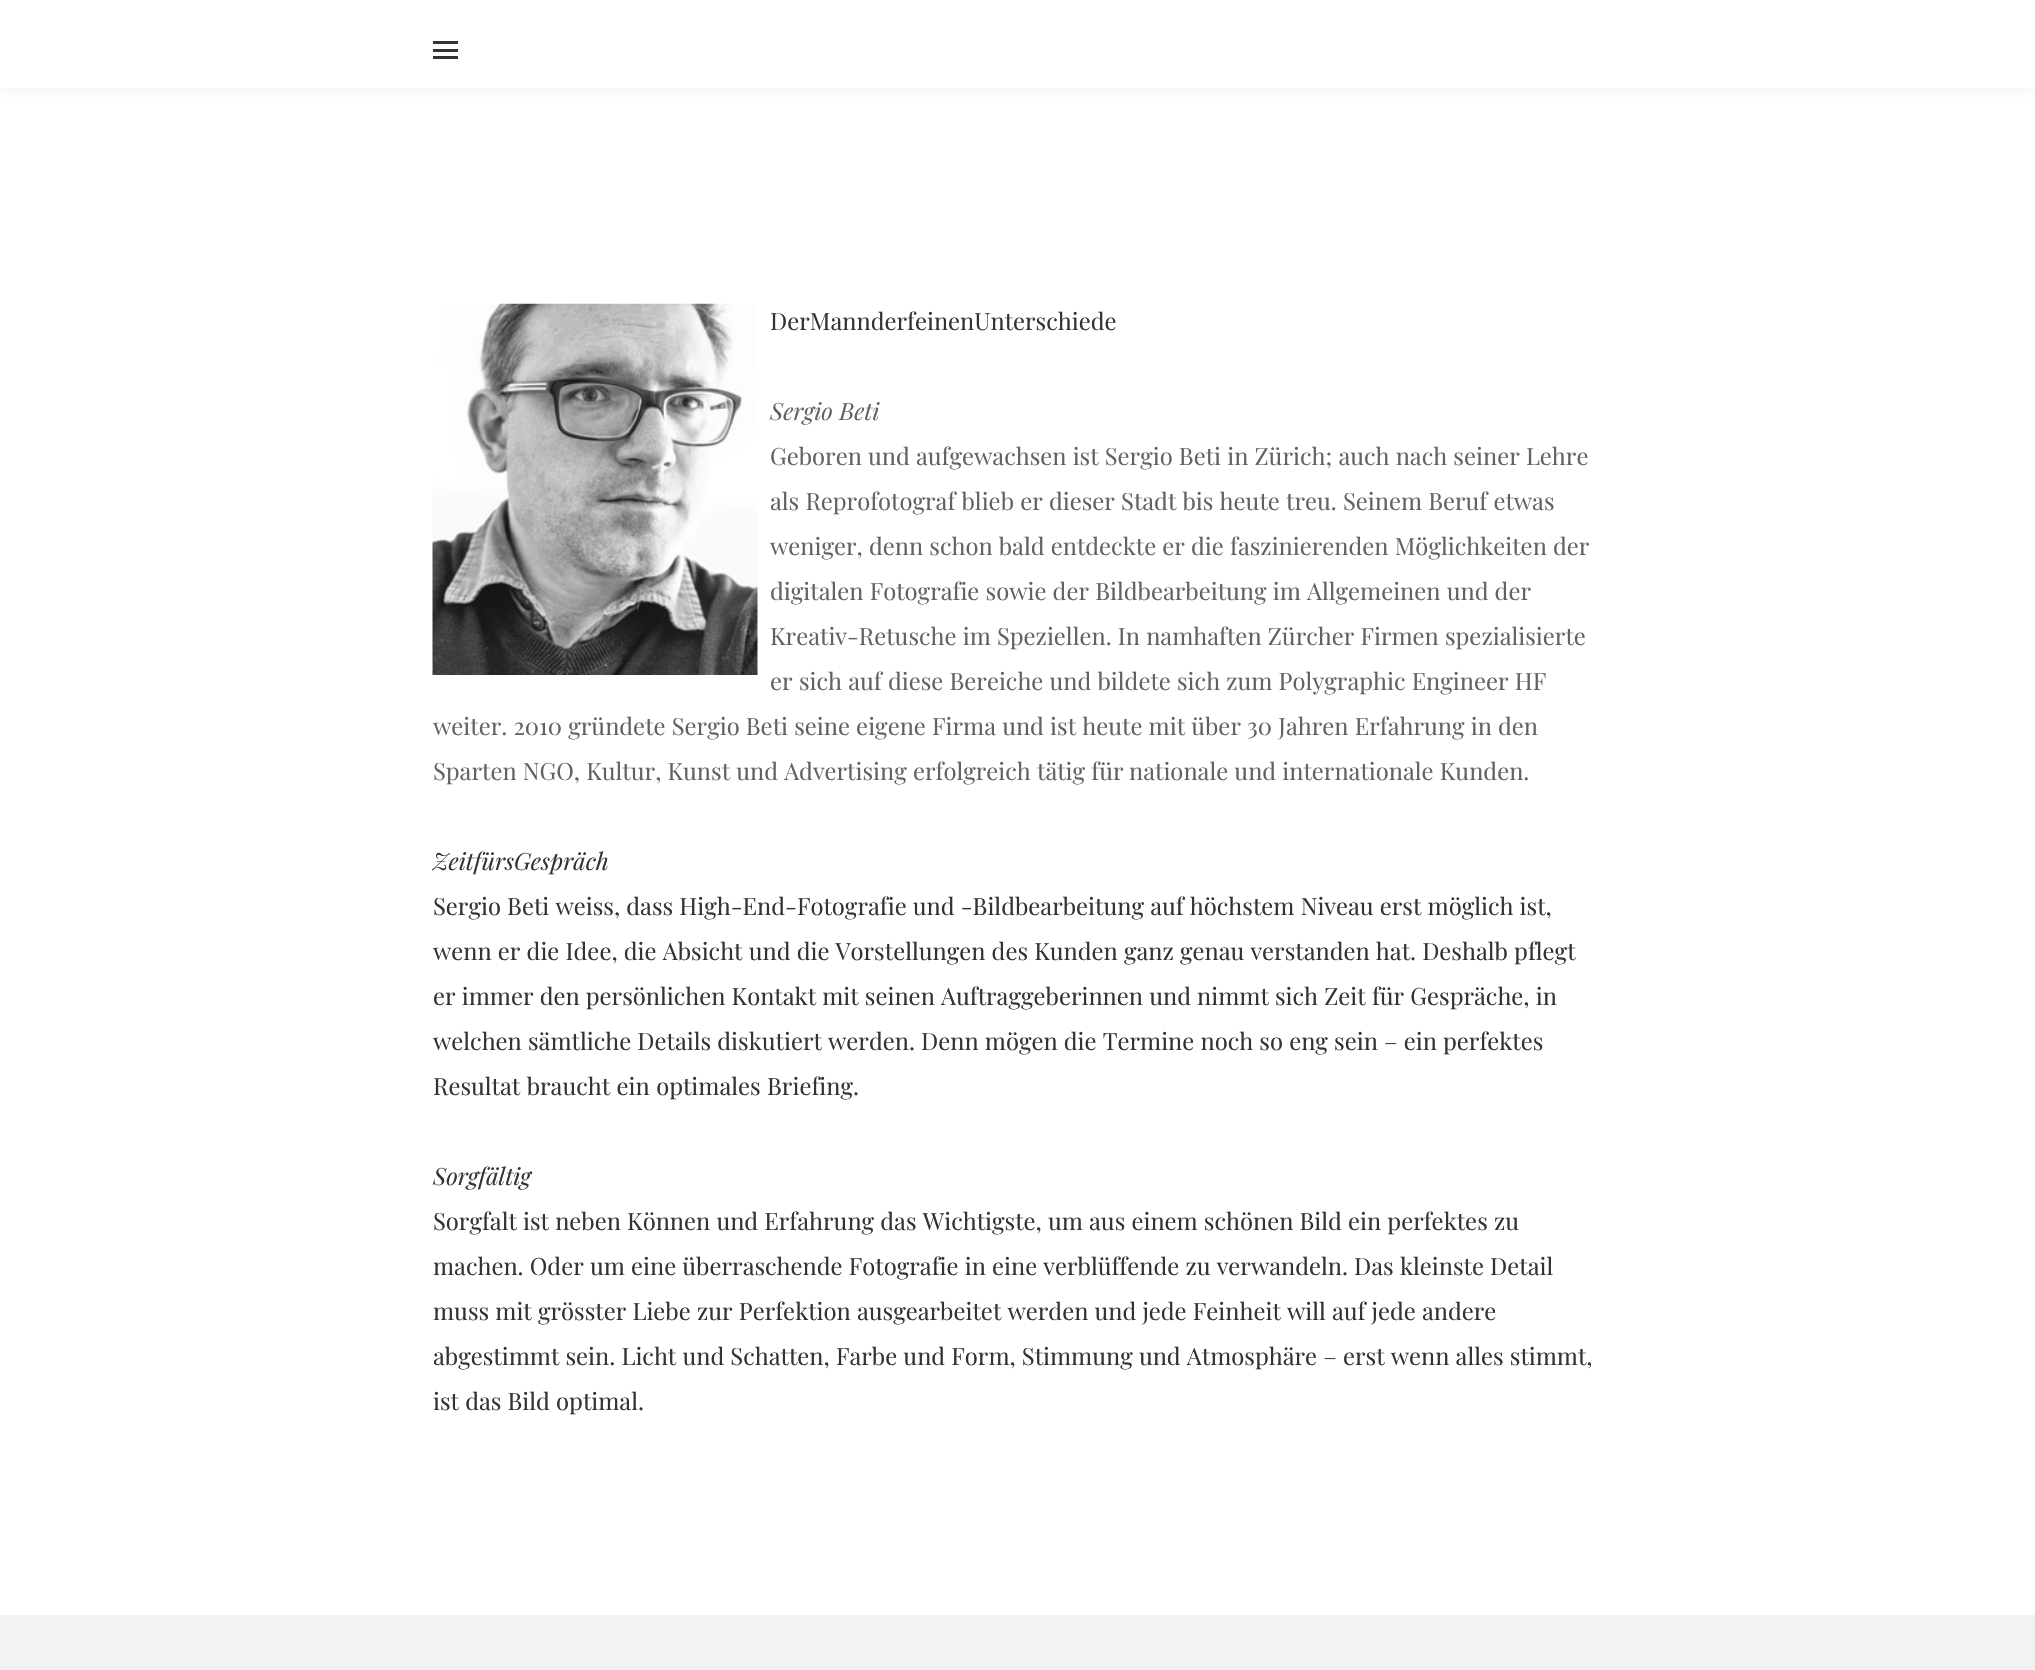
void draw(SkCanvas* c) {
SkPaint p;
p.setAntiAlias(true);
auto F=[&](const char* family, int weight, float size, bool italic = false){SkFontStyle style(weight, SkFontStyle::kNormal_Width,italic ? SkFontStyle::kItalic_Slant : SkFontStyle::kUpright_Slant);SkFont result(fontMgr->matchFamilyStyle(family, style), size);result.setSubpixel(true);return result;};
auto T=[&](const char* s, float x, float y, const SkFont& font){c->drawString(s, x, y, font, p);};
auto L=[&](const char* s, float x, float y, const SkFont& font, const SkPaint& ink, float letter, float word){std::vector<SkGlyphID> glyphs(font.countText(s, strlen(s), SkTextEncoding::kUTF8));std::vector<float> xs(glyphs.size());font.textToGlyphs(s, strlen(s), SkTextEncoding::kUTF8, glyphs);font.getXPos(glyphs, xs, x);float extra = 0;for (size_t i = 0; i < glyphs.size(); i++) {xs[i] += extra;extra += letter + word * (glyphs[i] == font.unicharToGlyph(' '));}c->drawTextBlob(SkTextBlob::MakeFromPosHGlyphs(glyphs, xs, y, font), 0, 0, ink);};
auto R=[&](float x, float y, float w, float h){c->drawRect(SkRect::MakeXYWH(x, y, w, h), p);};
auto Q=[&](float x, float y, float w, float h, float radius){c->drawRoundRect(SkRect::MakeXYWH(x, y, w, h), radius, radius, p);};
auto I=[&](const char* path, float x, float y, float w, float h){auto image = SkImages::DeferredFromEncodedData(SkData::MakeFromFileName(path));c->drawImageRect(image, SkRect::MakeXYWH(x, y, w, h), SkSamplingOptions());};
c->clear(0xfff2f2f2);
p.setColor(0xffffffff);
R(0,88,2035,1527);
p.setColor(0x0d000000);
p.setMaskFilter(SkMaskFilter::MakeBlur(kNormal_SkBlurStyle, 4));
c->drawRoundRect(SkRect::MakeXYWH(0,3,2035,87),1,1,p);
p.setMaskFilter(nullptr);
p.setColor(0xffffffff);
Q(0,0,2035,88,1);
p.setColor(0xff333333);
R(433,41,25,3);
R(433,49,25,3);
R(433,56,25,3);
I("1.png",432,303,326,372);
auto f1 = F("Playfair Display",400,23.75);
T("Der Mann der feinen Unterschiede",770,330,f1);
auto f2 = F("Playfair Display",400,23.75,true);
p.setColor(0xff626262);
L("Sergio Beti",770,420,f2,p,0,.25);
L("Geboren und aufgewachsen ist Sergio Beti in Zürich; auch nach seiner Lehre",770,465,f1,p,0,.25);
L("als Reprofotograf blieb er dieser Stadt bis heute treu. Seinem Beruf etwas",770,510,f1,p,0,.25);
L("weniger, denn schon bald entdeckte er die faszinierenden Möglichkeiten der",770,555,f1,p,0,.25);
L("digitalen Fotografie sowie der Bildbearbeitung im Allgemeinen und der",770,600,f1,p,0,.25);
L("Kreativ-Retusche im Speziellen. In namhaften Zürcher Firmen spezialisierte",770,645,f1,p,0,.25);
T("er",770,690,f1);
L("sich auf diese Bereiche und bildete sich zum Polygraphic Engineer HF",799,690,f1,p,0,.25);
L("weiter. 2010 gründete Sergio Beti seine eigene Firma und ist heute mit über 30 Jahren Erfahrung in den",433,735,f1,p,0,.25);
L("Sparten NGO, Kultur, Kunst und Advertising erfolgreich tätig für",433,780,f1,p,0,.25);
L("nationale und internationale Kunden.",1129,780,f1,p,0,.25);
p.setColor(0xff333333);
T("Zeit fürs Gespräch",433,870,f2);
L("Sergio Beti weiss, dass High-End-Fotografie und -Bildbearbeitung auf höchstem Niveau erst möglich ist,",433,915,f1,p,0,.25);
L("wenn er die Idee, die Absicht und die Vorstellungen des Kunden ganz genau verstanden hat. Deshalb pflegt",433,960,f1,p,0,.25);
L("er immer den persönlichen Kontakt mit seinen Auftraggeberinnen und nimmt sich Zeit für Gespräche, in",433,1005,f1,p,0,.25);
L("welchen sämtliche Details diskutiert werden. Denn mögen die Termine noch so eng sein – ein perfektes",433,1050,f1,p,0,.25);
L("Resultat braucht ein optimales Briefing.",433,1095,f1,p,0,.5);
T("Sorgfältig",433,1185,f2);
L("Sorgfalt ist neben Können und Erfahrung das Wichtigste, um aus einem schönen Bild ein perfektes zu",433,1230,f1,p,0,.25);
L("machen. Oder um eine überraschende Fotografie in eine verblüffende zu verwandeln. Das kleinste Detail",433,1275,f1,p,0,.25);
L("muss mit grösster Liebe zur Perfektion ausgearbeitet werden und jede Feinheit will auf jede andere",433,1320,f1,p,0,.25);
L("abgestimmt sein. Licht und Schatten, Farbe und Form, Stimmung und Atmosphäre – erst wenn alles stimmt,",433,1365,f1,p,0,.25);
L("ist das Bild optimal.",433,1410,f1,p,0,.25);
}
